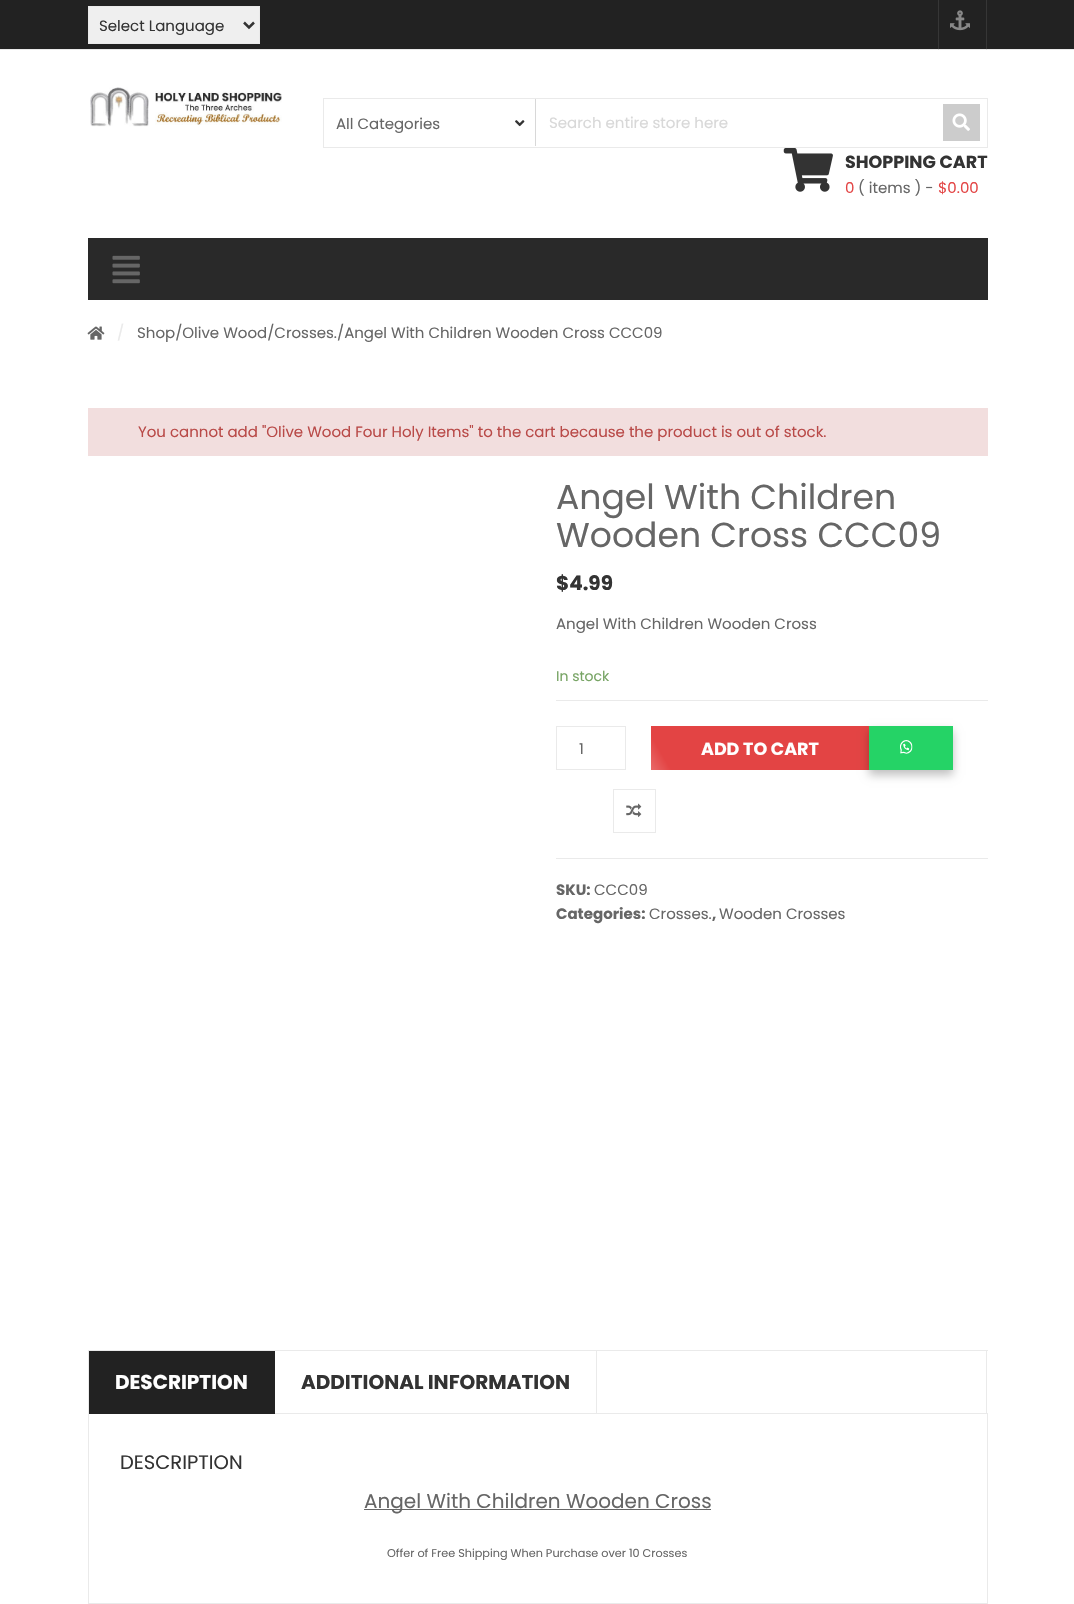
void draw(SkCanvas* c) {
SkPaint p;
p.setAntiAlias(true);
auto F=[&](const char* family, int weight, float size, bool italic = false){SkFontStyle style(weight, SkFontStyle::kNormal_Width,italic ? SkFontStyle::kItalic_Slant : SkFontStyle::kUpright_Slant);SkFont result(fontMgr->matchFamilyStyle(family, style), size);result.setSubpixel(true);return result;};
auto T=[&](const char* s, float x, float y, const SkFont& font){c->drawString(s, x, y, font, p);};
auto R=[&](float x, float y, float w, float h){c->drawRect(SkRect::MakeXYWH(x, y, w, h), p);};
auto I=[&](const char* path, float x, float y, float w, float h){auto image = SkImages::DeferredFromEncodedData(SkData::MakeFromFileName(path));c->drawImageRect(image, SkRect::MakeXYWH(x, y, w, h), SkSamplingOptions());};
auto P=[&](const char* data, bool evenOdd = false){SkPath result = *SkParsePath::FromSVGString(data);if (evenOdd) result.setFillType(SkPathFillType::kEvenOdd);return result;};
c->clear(0xffffffff);
p.setColor(0xff222222);
R(0,0,1074,49);
p.setColor(0xff363636);
R(938,0,1,50);
R(986,0,1,50);
p.setColor(0xffefefef);
c->drawRect(SkRect::MakeXYWH(88.5,6.5,171,37),p);
p.setStroke(true);
p.setStrokeWidth(1);
p.setColor(0xffeaeaea);
c->drawRect(SkRect::MakeXYWH(88.5,6.5,171,37),p);
p.setStrokeWidth(2.5);
p.setColor(0xff333333);
c->drawPath(P("M244 22.5l5 5l5-5"),p);
auto f1 = F("Poppins",400,15);
p.setStroke(false);
T("Select Language",99,31,f1);
I("1.png",950,10,20,21);
p.setColor(0xffeaeaea);
R(0,49,1074,1);
p.setColor(0xffd6d6d6);
R(938,49,1,1);
R(986,49,1,1);
I("2.png",90,87,192,40);
p.setStroke(true);
p.setStrokeWidth(1);
p.setColor(0xffeaeaea);
c->drawRect(SkRect::MakeXYWH(323.5,98.5,664,49),p);
p.setStroke(false);
p.setColor(0xff666666);
T("All Categories",336,129,f1);
I("3.png",515,120,10,7);
p.setColor(0xffd8d8d8);
R(535,99,1,47);
T("Search entire store here",549,128,f1);
p.setColor(0xffcccccc);
R(943,104,37,37);
I("4.png",952,113,18,18);
I("5.png",783,148,50,44);
auto f2 = F("Poppins",700,17.5);
p.setColor(0xff333333);
T("SHOPPING CART",845,168,f2);
p.setColor(0xffe34444);
T("0",845,193,f1);
p.setColor(0xff666666);
T("( items ) -",858,193,f1);
p.setColor(0xffe34444);
T("$0.00",938,193,f1);
p.setColor(0xff292929);
R(88,238,900,62);
I("6.png",112,255,28,29);
I("7.png",87,326,18,14);
p.setColor(0xffeaeaea);
T("/",117,338,f1);
p.setColor(0xff666666);
T("Shop/Olive Wood/Crosses./Angel With Children Wooden Cross CCC09",137,338,f1);
p.setColor(0xfff2dede);
R(88,408,900,48);
p.setColor(0xffb94a48);
T("You cannot add \"Olive Wood Four Holy Items\" to the cart because the product is out of stock.",138,437,f1);
auto f3 = F("Poppins",400,34.6);
p.setColor(0xff666666);
T("Angel With Children",556,509,f3);
T("Wooden Cross CCC09",556,547,f3);
auto f4 = F("Poppins",700,20);
p.setColor(0xff333333);
T("$4.99",556,590,f4);
p.setColor(0xff666666);
T("Angel With Children Wooden Cross",556,629,f1);
auto f5 = F("Poppins",400,14);
p.setColor(0xff77a464);
T("In stock",556,681,f5);
p.setColor(0xffeaeaea);
R(556,700,432,1);
p.setStroke(true);
c->drawRect(SkRect::MakeXYWH(556.5,726.5,69,43),p);
p.setStroke(false);
p.setColor(0xff666666);
T("1",579,754,f1);
p.setColor(0xffe34444);
R(651,726,218,44);
c->save();
c->clipRect(SkRect::MakeXYWH(651,726,218,44));
{
const SkColor colors[] = {0xffe34444,0xfff1a2a2,0xffe34444};
const float stops[] = {0,.5,1};
const SkPoint ends[] = {{640,716}, {564,760}};
p.setShader(SkGradientShader::MakeLinear(ends, colors, stops, 3, SkTileMode::kClamp));
p.setAlpha(255);
}
c->drawPath(P("M531 528l218 377l-76 44l-218-377z"),p);
c->restore();
p.setShader(nullptr);
p.setColor(0xffffffff);
T("ADD TO CART",701,755,f2);
p.setColor(0x40000000);
p.setMaskFilter(SkMaskFilter::MakeBlur(kNormal_SkBlurStyle, 4.5));
c->drawRect(SkRect::MakeXYWH(869,731,84,44),p);
p.setMaskFilter(nullptr);
p.setColor(0xff25d366);
R(869,726,84,44);
I("8.png",900,740,13,14);
p.setStroke(true);
p.setColor(0xffeaeaea);
c->drawRect(SkRect::MakeXYWH(613.5,789.5,42,43),p);
I("9.png",626,803,16,14);
p.setStroke(false);
R(556,858,432,1);
auto f6 = F("Poppins",700,15);
p.setColor(0xff666666);
T("SKU:",556,895,f6);
T("CCC09",594,895,f1);
T("Categories:",556,919,f6);
T("Crosses.",649,919,f1);
T(",",712,919,f6);
T("Wooden Crosses",719,919,f1);
p.setColor(0xffeaeaea);
R(88,1350,900,1);
R(986,1350,1,63);
R(88,1350,1,63);
p.setStroke(true);
c->drawRect(SkRect::MakeXYWH(88.5,1413.5,899,190),p);
p.setStroke(false);
p.setColor(0xff222222);
R(89,1351,186,63);
p.setColor(0xffffffff);
T("DESCRIPTION",115,1389,f4);
p.setColor(0xffeaeaea);
R(596,1351,1,63);
p.setColor(0xff333333);
T("ADDITIONAL INFORMATION",301,1389,f4);
auto f7 = F("Poppins",400,19.5);
T("DESCRIPTION",120,1469,f7);
p.setColor(0xff666666);
R(364,1509,347,1);
auto f8 = F("Poppins",400,20);
T("Angel With Children Wooden Cross",364,1508,f8);
auto f9 = F("Poppins",400,11.25);
T("Offer of Free Shipping When Purchase over 10 Crosses",387,1557,f9);
}
